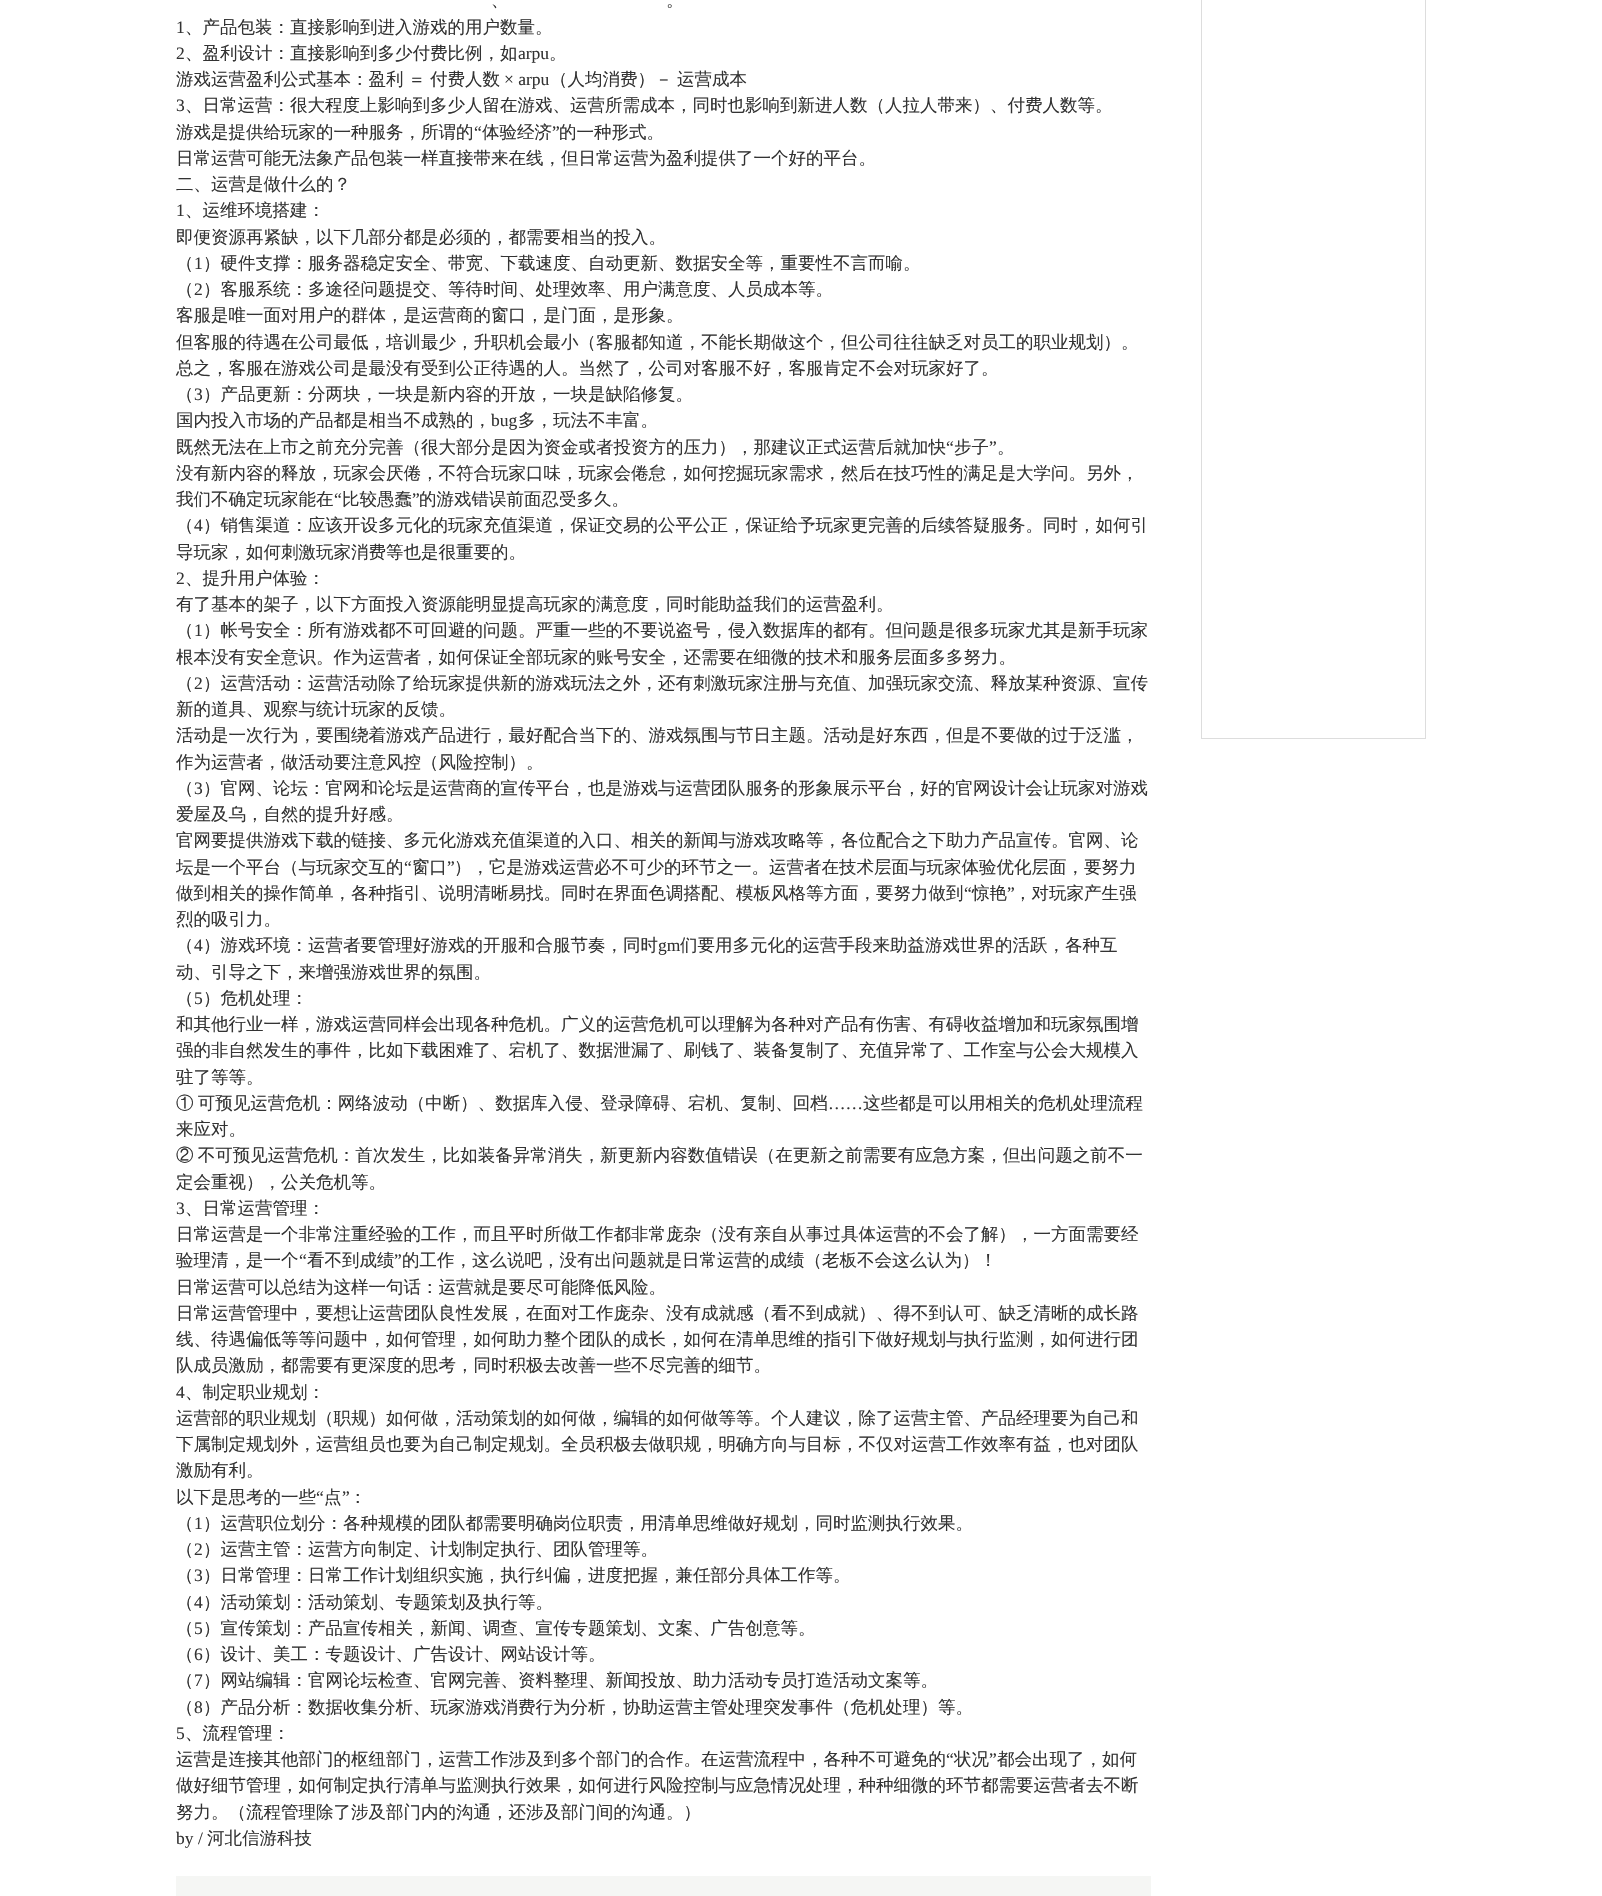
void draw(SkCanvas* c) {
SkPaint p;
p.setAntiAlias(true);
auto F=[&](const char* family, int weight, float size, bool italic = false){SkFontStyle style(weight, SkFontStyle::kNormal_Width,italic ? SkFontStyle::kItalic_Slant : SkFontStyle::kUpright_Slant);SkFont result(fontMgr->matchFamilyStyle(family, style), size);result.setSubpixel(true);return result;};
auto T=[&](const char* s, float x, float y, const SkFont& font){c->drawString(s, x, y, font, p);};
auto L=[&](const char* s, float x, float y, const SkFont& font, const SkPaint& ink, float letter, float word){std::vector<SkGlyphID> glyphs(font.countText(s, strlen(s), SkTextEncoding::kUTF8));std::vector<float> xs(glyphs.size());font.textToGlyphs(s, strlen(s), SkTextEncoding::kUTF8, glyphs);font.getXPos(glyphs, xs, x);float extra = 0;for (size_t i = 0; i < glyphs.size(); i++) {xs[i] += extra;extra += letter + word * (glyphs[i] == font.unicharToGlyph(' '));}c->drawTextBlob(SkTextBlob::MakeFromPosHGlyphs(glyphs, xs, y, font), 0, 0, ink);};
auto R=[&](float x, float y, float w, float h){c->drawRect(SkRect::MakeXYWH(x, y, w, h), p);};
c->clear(0xffffffff);
auto f1 = F("WenQuanYi Zen Hei",500,17.5);
p.setColor(0xff333333);
T("、",491,6,f1);
T("。",666,6,f1);
auto f2 = F("Liberation Serif",400,17.5);
T("1",176,33,f2);
T("、产品包装：直接影响到进入游戏的用户数量。",185,33,f1);
T("2",176,59,f2);
T("、盈利设计：直接影响到多少付费比例，如",185,59,f1);
T("arpu",518,59,f2);
T("。",549,59,f1);
T("游戏运营盈利公式基本：盈利",176,85,f1);
T("＝",408,85,f1);
T("付费人数",430,85,f1);
T("× arpu",504,85,f2);
T("（人均消费）－",550,85,f1);
T("运营成本",677,85,f1);
T("3",176,111,f2);
T("、日常运营：很大程度上影响到多少人留在游戏、运营所需成本，同时也影响到新进人数（人拉人带来）、付费人数等。",185,111,f1);
T("游戏是提供给玩家的一种服务，所谓的",176,138,f1);
T("“",474,138,f2);
T("体验经济",482,138,f1);
T("”",552,138,f2);
T("的一种形式。",559,138,f1);
T("日常运营可能无法象产品包装一样直接带来在线，但日常运营为盈利提供了一个好的平台。",176,164,f1);
T("二、运营是做什么的？",176,190,f1);
T("1",176,216,f2);
T("、运维环境搭建：",185,216,f1);
T("即便资源再紧缺，以下几部分都是必须的，都需要相当的投入。",176,243,f1);
T("（",176,269,f1);
T("1",194,269,f2);
T("）硬件支撑：服务器稳定安全、带宽、下载速度、自动更新、数据安全等，重要性不言而喻。",203,269,f1);
T("（",176,295,f1);
T("2",194,295,f2);
T("）客服系统：多途径问题提交、等待时间、处理效率、用户满意度、人员成本等。",203,295,f1);
T("客服是唯一面对用户的群体，是运营商的窗口，是门面，是形象。",176,321,f1);
T("但客服的待遇在公司最低，培训最少，升职机会最小（客服都知道，不能长期做这个，但公司往往缺乏对员工的职业规划）。",176,348,f1);
T("总之，客服在游戏公司是最没有受到公正待遇的人。当然了，公司对客服不好，客服肯定不会对玩家好了。",176,374,f1);
T("（",176,400,f1);
T("3",194,400,f2);
T("）产品更新：分两块，一块是新内容的开放，一块是缺陷修复。",203,400,f1);
T("国内投入市场的产品都是相当不成熟的，",176,426,f1);
T("bug",491,426,f2);
T("多，玩法不丰富。",518,426,f1);
T("既然无法在上市之前充分完善（很大部分是因为资金或者投资方的压力），那建议正式运营后就加快",176,453,f1);
T("“",946,453,f2);
T("步子",954,453,f1);
T("”",989,453,f2);
T("。",997,453,f1);
T("没有新内容的释放，玩家会厌倦，不符合玩家口味，玩家会倦怠，如何挖掘玩家需求，然后在技巧性的满足是大学问。另外，",176,479,f1);
T("我们不确定玩家能在",176,505,f1);
T("“",334,505,f2);
T("比较愚蠢",342,505,f1);
T("”",412,505,f2);
T("的游戏错误前面忍受多久。",419,505,f1);
T("（",176,531,f1);
T("4",194,531,f2);
T("）销售渠道：应该开设多元化的玩家充值渠道，保证交易的公平公正，保证给予玩家更完善的后续答疑服务。同时，如何引",203,531,f1);
T("导玩家，如何刺激玩家消费等也是很重要的。",176,558,f1);
T("2",176,584,f2);
T("、提升用户体验：",185,584,f1);
T("有了基本的架子，以下方面投入资源能明显提高玩家的满意度，同时能助益我们的运营盈利。",176,610,f1);
T("（",176,636,f1);
T("1",194,636,f2);
T("）帐号安全：所有游戏都不可回避的问题。严重一些的不要说盗号，侵入数据库的都有。但问题是很多玩家尤其是新手玩家",203,636,f1);
T("根本没有安全意识。作为运营者，如何保证全部玩家的账号安全，还需要在细微的技术和服务层面多多努力。",176,663,f1);
T("（",176,689,f1);
T("2",194,689,f2);
T("）运营活动：运营活动除了给玩家提供新的游戏玩法之外，还有刺激玩家注册与充值、加强玩家交流、释放某种资源、宣传",203,689,f1);
T("新的道具、观察与统计玩家的反馈。",176,715,f1);
T("活动是一次行为，要围绕着游戏产品进行，最好配合当下的、游戏氛围与节日主题。活动是好东西，但是不要做的过于泛滥，",176,741,f1);
T("作为运营者，做活动要注意风控（风险控制）。",176,768,f1);
T("（",176,794,f1);
T("3",194,794,f2);
T("）官网、论坛：官网和论坛是运营商的宣传平台，也是游戏与运营团队服务的形象展示平台，好的官网设计会让玩家对游戏",203,794,f1);
T("爱屋及乌，自然的提升好感。",176,820,f1);
T("官网要提供游戏下载的链接、多元化游戏充值渠道的入口、相关的新闻与游戏攻略等，各位配合之下助力产品宣传。官网、论",176,846,f1);
T("坛是一个平台（与玩家交互的",176,873,f1);
T("“",404,873,f2);
T("窗口",412,873,f1);
T("”",447,873,f2);
T("），它是游戏运营必不可少的环节之一。运营者在技术层面与玩家体验优化层面，要努力",454,873,f1);
T("做到相关的操作简单，各种指引、说明清晰易找。同时在界面色调搭配、模板风格等方面，要努力做到",176,899,f1);
T("“",964,899,f2);
T("惊艳",972,899,f1);
T("”",1007,899,f2);
T("，对玩家产生强",1014,899,f1);
T("烈的吸引力。",176,925,f1);
T("（",176,951,f1);
T("4",194,951,f2);
T("）游戏环境：运营者要管理好游戏的开服和合服节奏，同时",203,951,f1);
T("gm",658,951,f2);
T("们要用多元化的运营手段来助益游戏世界的活跃，各种互",680,951,f1);
T("动、引导之下，来增强游戏世界的氛围。",176,978,f1);
T("（",176,1004,f1);
T("5",194,1004,f2);
T("）危机处理：",203,1004,f1);
T("和其他行业一样，游戏运营同样会出现各种危机。广义的运营危机可以理解为各种对产品有伤害、有碍收益增加和玩家氛围增",176,1030,f1);
T("强的非自然发生的事件，比如下载困难了、宕机了、数据泄漏了、刷钱了、装备复制了、充值异常了、工作室与公会大规模入",176,1056,f1);
T("驻了等等。",176,1083,f1);
L("① 可预见运营危机：网络波动（中断）、数据库入侵、登录障碍、宕机、复制、回档",176,1109,f1,p,0,-1);
T("……",828,1109,f2);
T("这些都是可以用相关的危机处理流程",863,1109,f1);
T("来应对。",176,1135,f1);
L("② 不可预见运营危机：首次发生，比如装备异常消失，新更新内容数值错误（在更新之前需要有应急方案，但出问题之前不一",176,1161,f1,p,0,-1);
T("定会重视），公关危机等。",176,1188,f1);
T("3",176,1214,f2);
T("、日常运营管理：",185,1214,f1);
T("日常运营是一个非常注重经验的工作，而且平时所做工作都非常庞杂（没有亲自从事过具体运营的不会了解），一方面需要经",176,1240,f1);
T("验理清，是一个",176,1266,f1);
T("“",299,1266,f2);
T("看不到成绩",307,1266,f1);
T("”",394,1266,f2);
T("的工作，这么说吧，没有出问题就是日常运营的成绩（老板不会这么认为）！",402,1266,f1);
T("日常运营可以总结为这样一句话：运营就是要尽可能降低风险。",176,1293,f1);
T("日常运营管理中，要想让运营团队良性发展，在面对工作庞杂、没有成就感（看不到成就）、得不到认可、缺乏清晰的成长路",176,1319,f1);
T("线、待遇偏低等等问题中，如何管理，如何助力整个团队的成长，如何在清单思维的指引下做好规划与执行监测，如何进行团",176,1345,f1);
T("队成员激励，都需要有更深度的思考，同时积极去改善一些不尽完善的细节。",176,1371,f1);
T("4",176,1398,f2);
T("、制定职业规划：",185,1398,f1);
T("运营部的职业规划（职规）如何做，活动策划的如何做，编辑的如何做等等。个人建议，除了运营主管、产品经理要为自己和",176,1424,f1);
T("下属制定规划外，运营组员也要为自己制定规划。全员积极去做职规，明确方向与目标，不仅对运营工作效率有益，也对团队",176,1450,f1);
T("激励有利。",176,1476,f1);
T("以下是思考的一些",176,1503,f1);
T("“",316,1503,f2);
T("点",324,1503,f1);
T("”",342,1503,f2);
T("：",349,1503,f1);
T("（",176,1529,f1);
T("1",194,1529,f2);
T("）运营职位划分：各种规模的团队都需要明确岗位职责，用清单思维做好规划，同时监测执行效果。",203,1529,f1);
T("（",176,1555,f1);
T("2",194,1555,f2);
T("）运营主管：运营方向制定、计划制定执行、团队管理等。",203,1555,f1);
T("（",176,1581,f1);
T("3",194,1581,f2);
T("）日常管理：日常工作计划组织实施，执行纠偏，进度把握，兼任部分具体工作等。",203,1581,f1);
T("（",176,1608,f1);
T("4",194,1608,f2);
T("）活动策划：活动策划、专题策划及执行等。",203,1608,f1);
T("（",176,1634,f1);
T("5",194,1634,f2);
T("）宣传策划：产品宣传相关，新闻、调查、宣传专题策划、文案、广告创意等。",203,1634,f1);
T("（",176,1660,f1);
T("6",194,1660,f2);
T("）设计、美工：专题设计、广告设计、网站设计等。",203,1660,f1);
T("（",176,1686,f1);
T("7",194,1686,f2);
T("）网站编辑：官网论坛检查、官网完善、资料整理、新闻投放、助力活动专员打造活动文案等。",203,1686,f1);
T("（",176,1713,f1);
T("8",194,1713,f2);
T("）产品分析：数据收集分析、玩家游戏消费行为分析，协助运营主管处理突发事件（危机处理）等。",203,1713,f1);
T("5",176,1739,f2);
T("、流程管理：",185,1739,f1);
T("运营是连接其他部门的枢纽部门，运营工作涉及到多个部门的合作。在运营流程中，各种不可避免的",176,1765,f1);
T("“",946,1765,f2);
T("状况",954,1765,f1);
T("”",989,1765,f2);
T("都会出现了，如何",997,1765,f1);
T("做好细节管理，如何制定执行清单与监测执行效果，如何进行风险控制与应急情况处理，种种细微的环节都需要运营者去不断",176,1791,f1);
T("努力。（流程管理除了涉及部门内的沟通，还涉及部门间的沟通。）",176,1818,f1);
T("by /",176,1844,f2);
T("河北信游科技",207,1844,f1);
p.setColor(0xfff5f6f4);
R(176,1876,975,20);
p.setStroke(true);
p.setStrokeWidth(1);
p.setColor(0xffdddddd);
c->drawRect(SkRect::MakeXYWH(1201.5,-.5,224,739),p);
}
